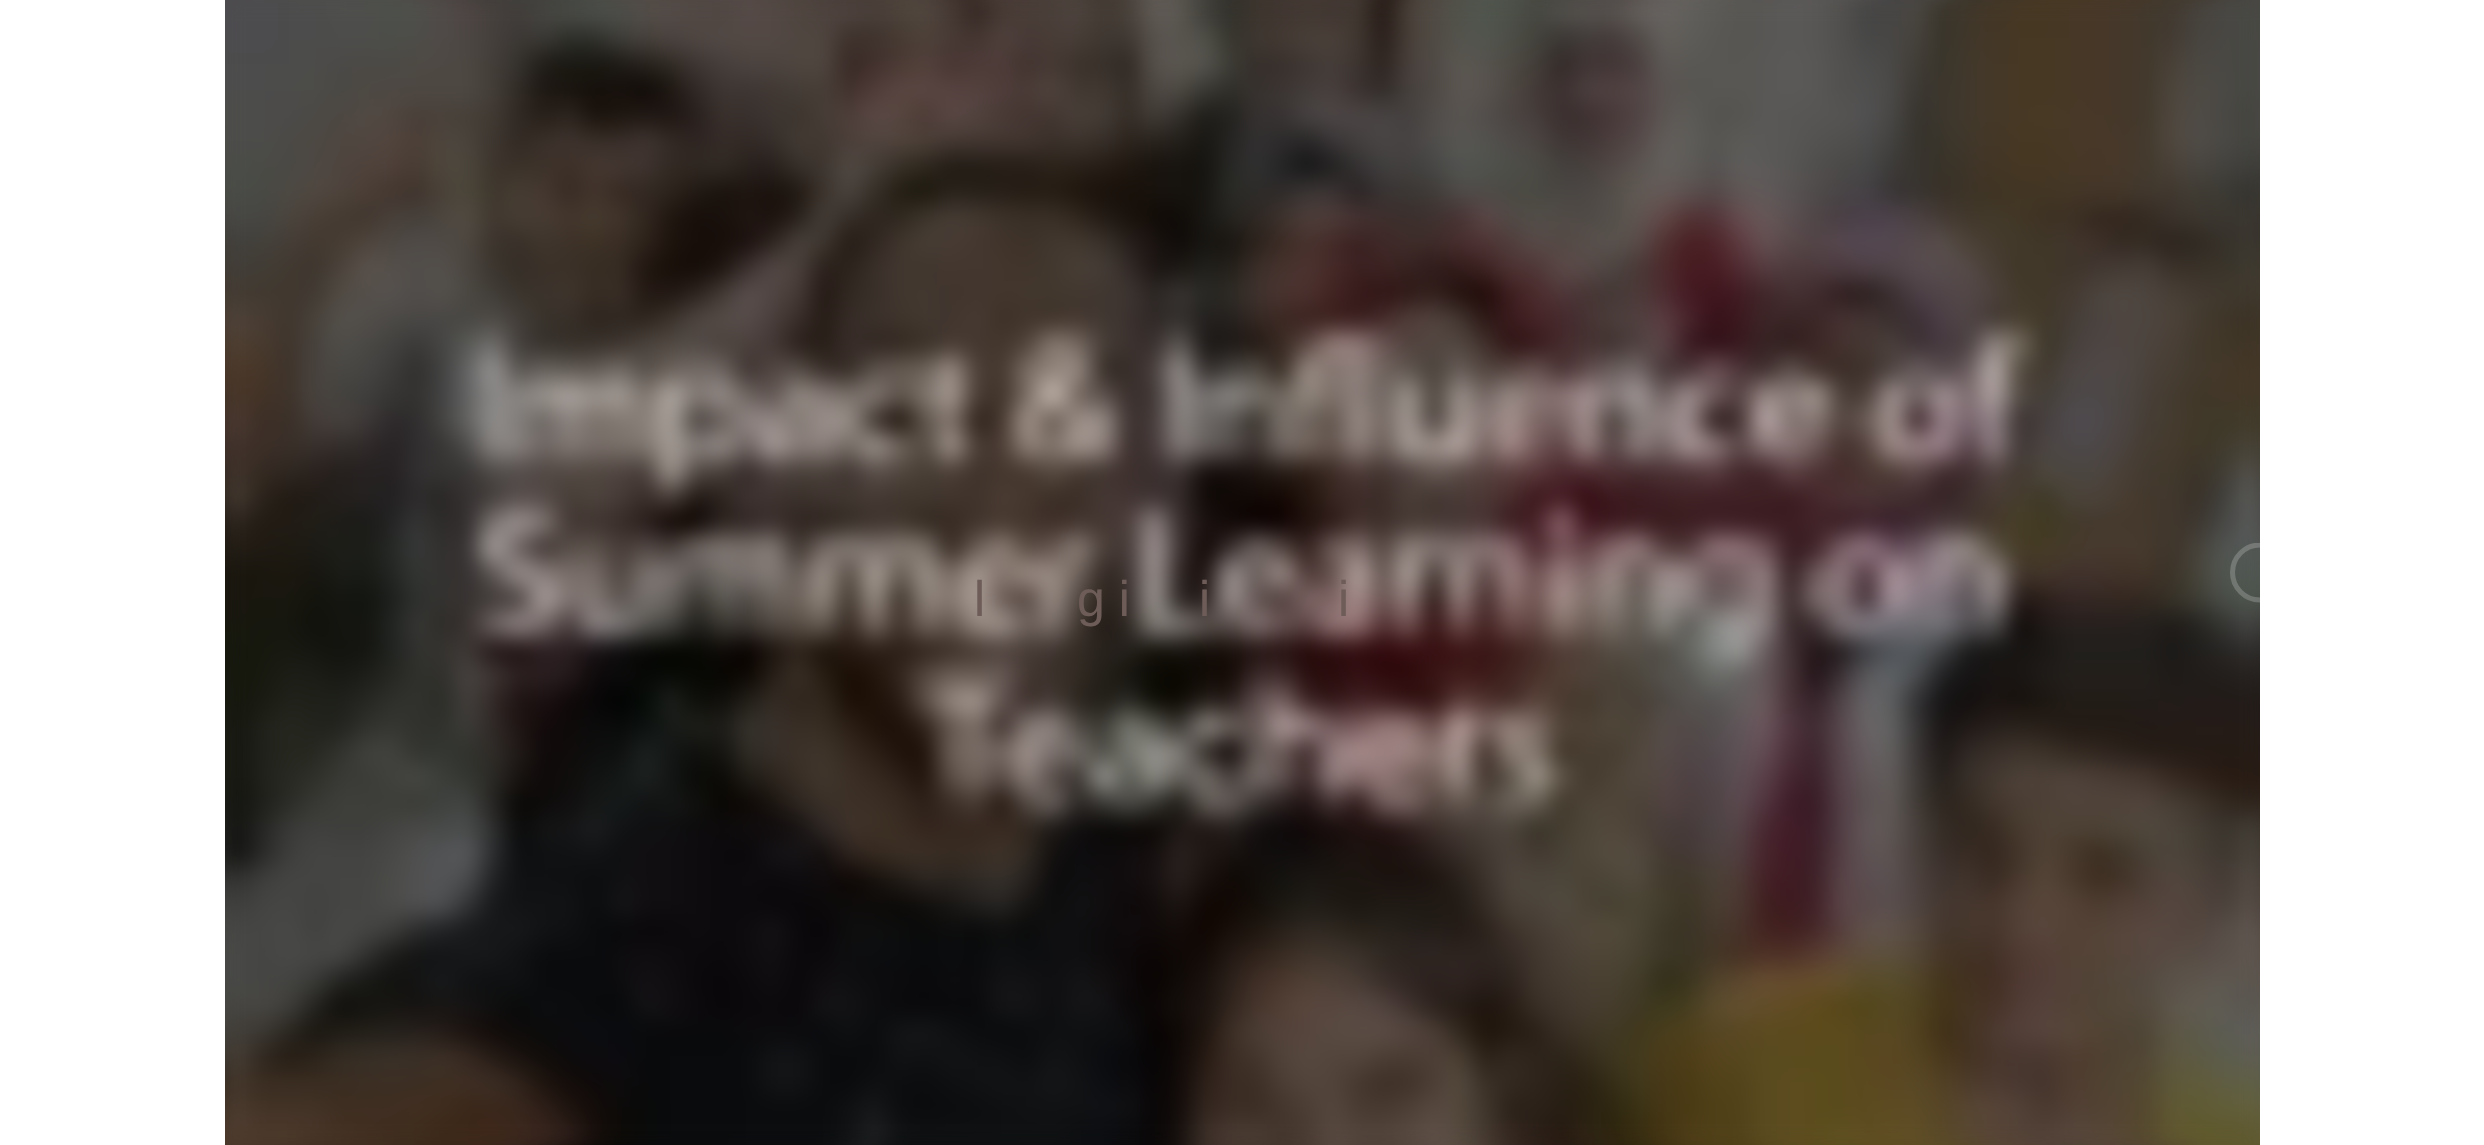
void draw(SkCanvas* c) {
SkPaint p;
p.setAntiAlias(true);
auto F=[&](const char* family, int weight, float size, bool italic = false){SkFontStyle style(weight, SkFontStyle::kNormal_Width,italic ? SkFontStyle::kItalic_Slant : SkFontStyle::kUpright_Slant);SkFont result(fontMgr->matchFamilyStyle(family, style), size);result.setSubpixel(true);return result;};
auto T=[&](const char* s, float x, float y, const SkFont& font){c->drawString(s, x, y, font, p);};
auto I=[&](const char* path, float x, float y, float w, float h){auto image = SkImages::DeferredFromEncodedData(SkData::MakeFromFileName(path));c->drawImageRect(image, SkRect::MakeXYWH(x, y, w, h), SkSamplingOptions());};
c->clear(0xffffffff);
I("1.png",225,0,2035,1145);
I("2.png",225,0,2035,1145);
auto f1 = F("Liberation Sans",400,50);
p.setColor(0xff6d5c58);
T("l",974,616,f1);
T("g i",1077,616,f1);
T("i",1199,616,f1);
T("i",1338,616,f1);
c->save();
c->clipRect(SkRect::MakeXYWH(2230,543,60,60));
p.setStroke(true);
p.setStrokeWidth(5);
p.setColor(0x33ffffff);
c->drawCircle(2260,572.5,27.5,p);
c->restore();
}
